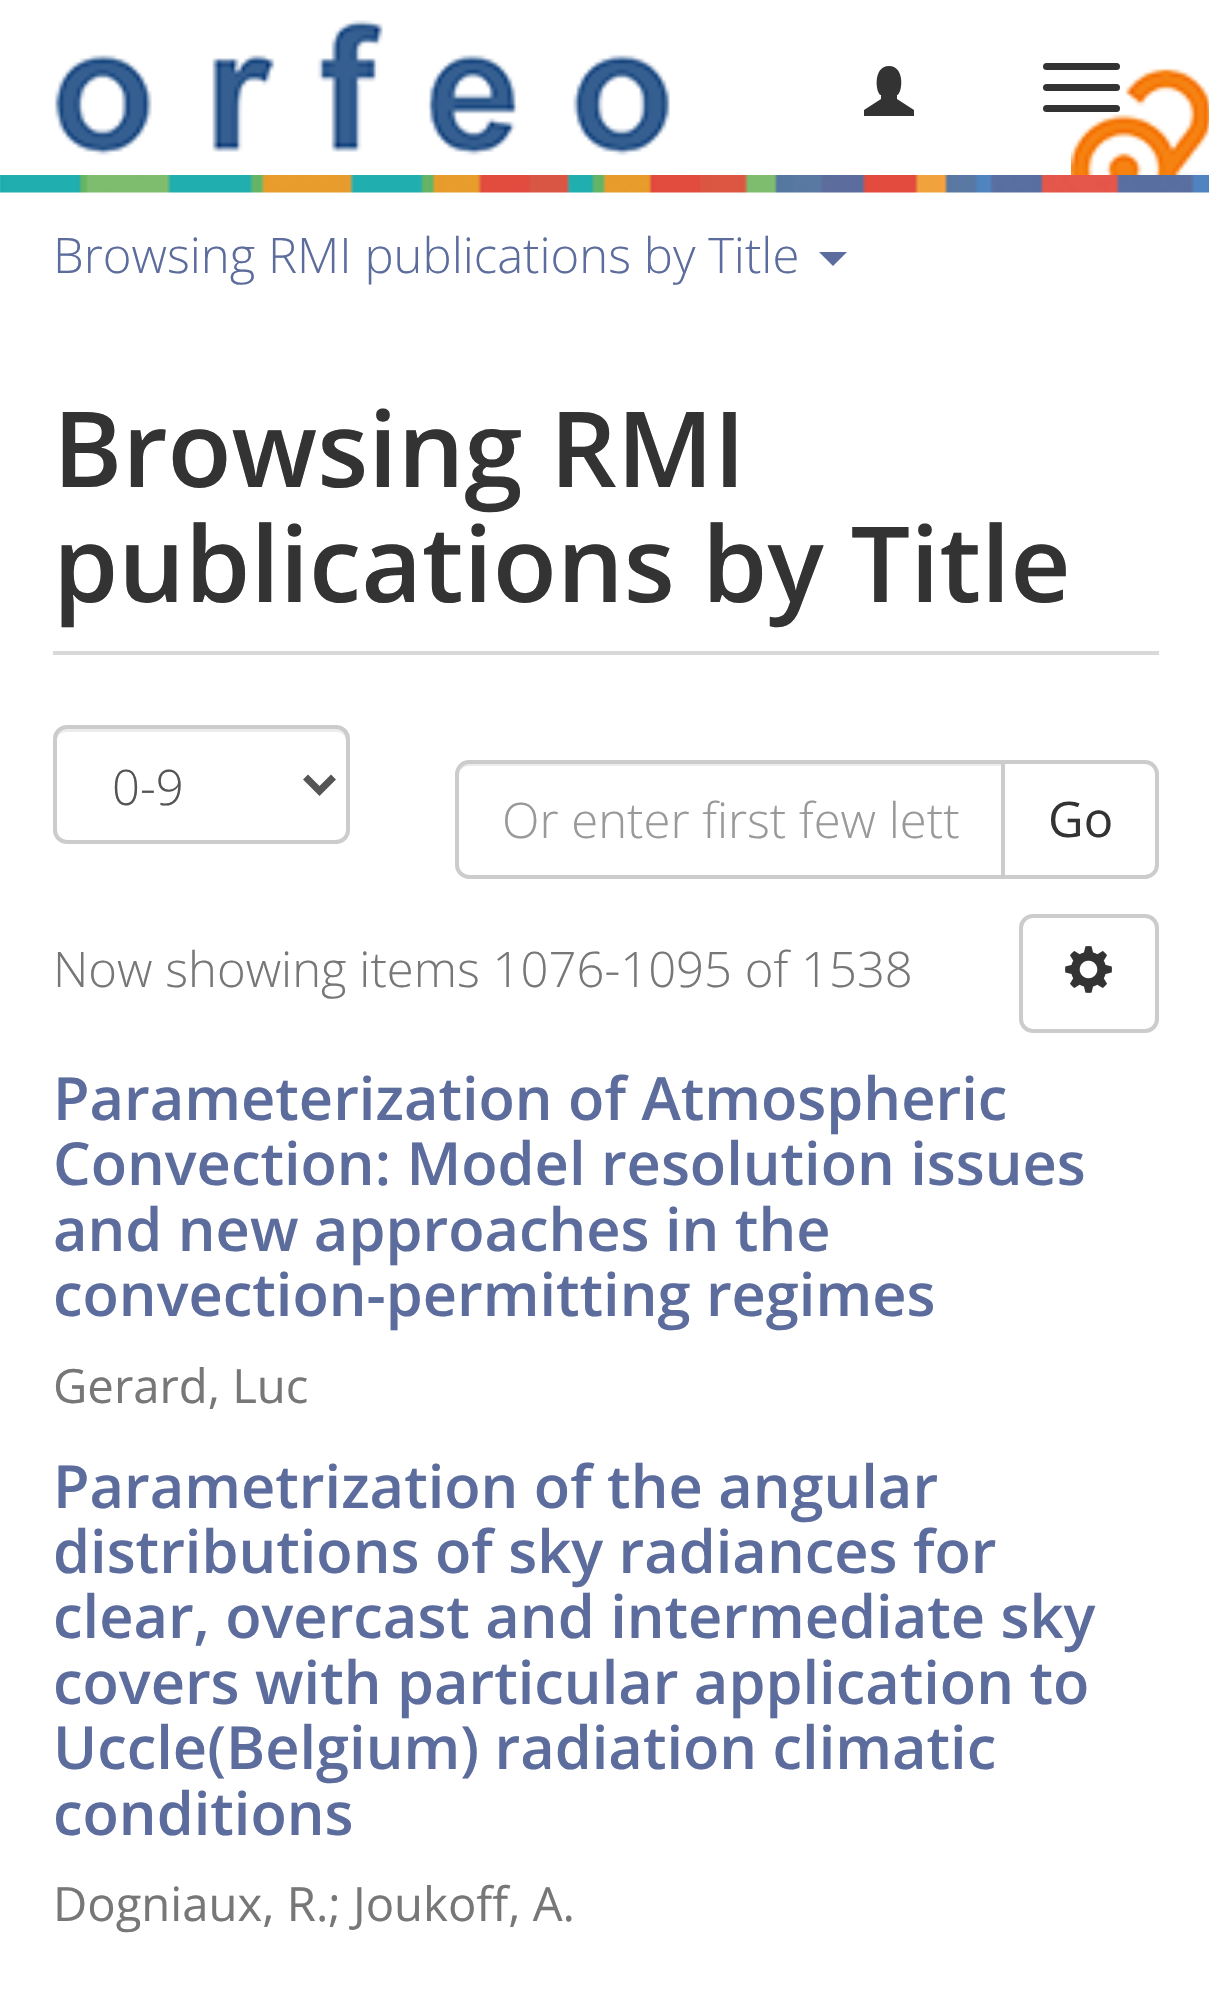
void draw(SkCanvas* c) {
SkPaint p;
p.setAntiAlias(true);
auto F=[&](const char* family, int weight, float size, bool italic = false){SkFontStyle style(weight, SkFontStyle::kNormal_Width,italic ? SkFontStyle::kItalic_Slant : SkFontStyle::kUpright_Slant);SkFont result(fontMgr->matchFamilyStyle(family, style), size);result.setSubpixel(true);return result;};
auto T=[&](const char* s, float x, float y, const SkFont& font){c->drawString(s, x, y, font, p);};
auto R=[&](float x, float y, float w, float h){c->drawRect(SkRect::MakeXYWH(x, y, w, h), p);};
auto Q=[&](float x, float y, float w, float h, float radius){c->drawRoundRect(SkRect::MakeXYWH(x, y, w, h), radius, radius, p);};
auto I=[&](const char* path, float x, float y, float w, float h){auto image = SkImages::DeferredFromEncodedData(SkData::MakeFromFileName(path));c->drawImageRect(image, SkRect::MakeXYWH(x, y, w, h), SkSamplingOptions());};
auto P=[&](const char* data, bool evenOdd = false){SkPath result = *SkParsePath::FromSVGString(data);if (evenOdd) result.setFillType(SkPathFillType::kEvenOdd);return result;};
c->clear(0xffffffff);
I("1.png",1071,68,138,107);
I("2.png",54,20,616,136);
p.setColor(0xff333333);
c->drawPath(P("M864 116v-6l17-11v-4c-5 0-9-29 8-29c17 0 13 29 8 29v4l17 11v6z"),p);
Q(1043,63,77,7,3.5);
Q(1043,84,77,7,3.5);
Q(1043,105,77,7,3.5);
I("3.png",0,175,1209,18);
auto f1 = F("Open Sans",300,49);
p.setColor(0xff5c6c9d);
T("Browsing RMI publications by Title",53,273,f1);
c->drawPath(P("M819 252h28l-14 14z"),p);
p.setColor(0xffd9d9d9);
R(53,651,1106,4);
auto f2 = F("Open Sans",600,105);
p.setColor(0xff333333);
T("Browsing RMI",53,487,f2);
T("publications by Title",53,602,f2);
p.setColor(0xffececec);
c->drawPath(P("M66 732h270c14 0 10 17 10 25v77c1-2 1-3 1-5v-90c0-6-5-11-11-11h-269c-6 0-11 5-11 11v3c0-6 5-10 10-10z"),p);
p.setStroke(true);
p.setStrokeWidth(4);
p.setColor(0xffcccccc);
c->drawRoundRect(SkRect::MakeXYWH(55,727,293,115),12,12,p);
p.setStrokeWidth(7);
p.setColor(0xff555555);
c->drawPath(P("M305.5 777l14 14l14-14"),p);
p.setStroke(false);
T("0-9",112,805,f1);
p.setStroke(true);
p.setStrokeWidth(4);
p.setColor(0xffcccccc);
c->drawPath(P("M1003 762h142c6.5 0 12 5.5 12 12v91c0 6.5-5.5 12-12 12h-142z"),p);
p.setStroke(false);
p.setColor(0xffffffff);
c->drawPath(P("M469 760h536v119h-536c-7.5 0-14-6.5-14-14v-91c0-7.5 6.5-14 14-14z"),p);
p.setColor(0xffececec);
c->drawPath(P("M469 766h532v-3h-531c-5 0-10 4-11 9c2-3 6-6 10-6z"),p);
p.setStroke(true);
p.setColor(0xffcccccc);
c->drawPath(P("M469 762h534v115h-534c-6.5 0-12-5.5-12-12v-91c0-6.5 5.5-12 12-12z"),p);
p.setStroke(false);
p.setColor(0xff999999);
T("Or enter first few lett",502,838,f1);
auto f3 = F("Open Sans",400,49);
p.setColor(0xff333333);
T("Go",1048,837,f3);
p.setColor(0xff777777);
T("Now showing items 1076-1095 of 1538",53,987,f1);
p.setStroke(true);
p.setColor(0xffcccccc);
c->drawRoundRect(SkRect::MakeXYWH(1021,916,136,115),12,12,p);
I("4.png",1065,946,47,47);
auto f4 = F("Open Sans",600,59.5);
p.setStroke(false);
p.setColor(0xff5c6c9d);
T("Parameterization of Atmospheric",53,1120,f4);
T("Convection: Model resolution issues",53,1185,f4);
T("and new approaches in the",53,1251,f4);
T("convection-permitting regimes",53,1316,f4);
auto f5 = F("Open Sans",400,47.25);
p.setColor(0xff777777);
T("Gerard, Luc",53,1403,f5);
p.setColor(0xff5c6c9d);
T("Parametrization of the angular",53,1508,f4);
T("distributions of sky radiances for",53,1573,f4);
T("clear, overcast and intermediate sky",53,1638,f4);
T("covers with particular application to",53,1704,f4);
T("Uccle(Belgium) radiation climatic",53,1769,f4);
T("conditions",53,1835,f4);
p.setColor(0xff777777);
T("Dogniaux, R.; Joukoff, A.",53,1921,f5);
}
